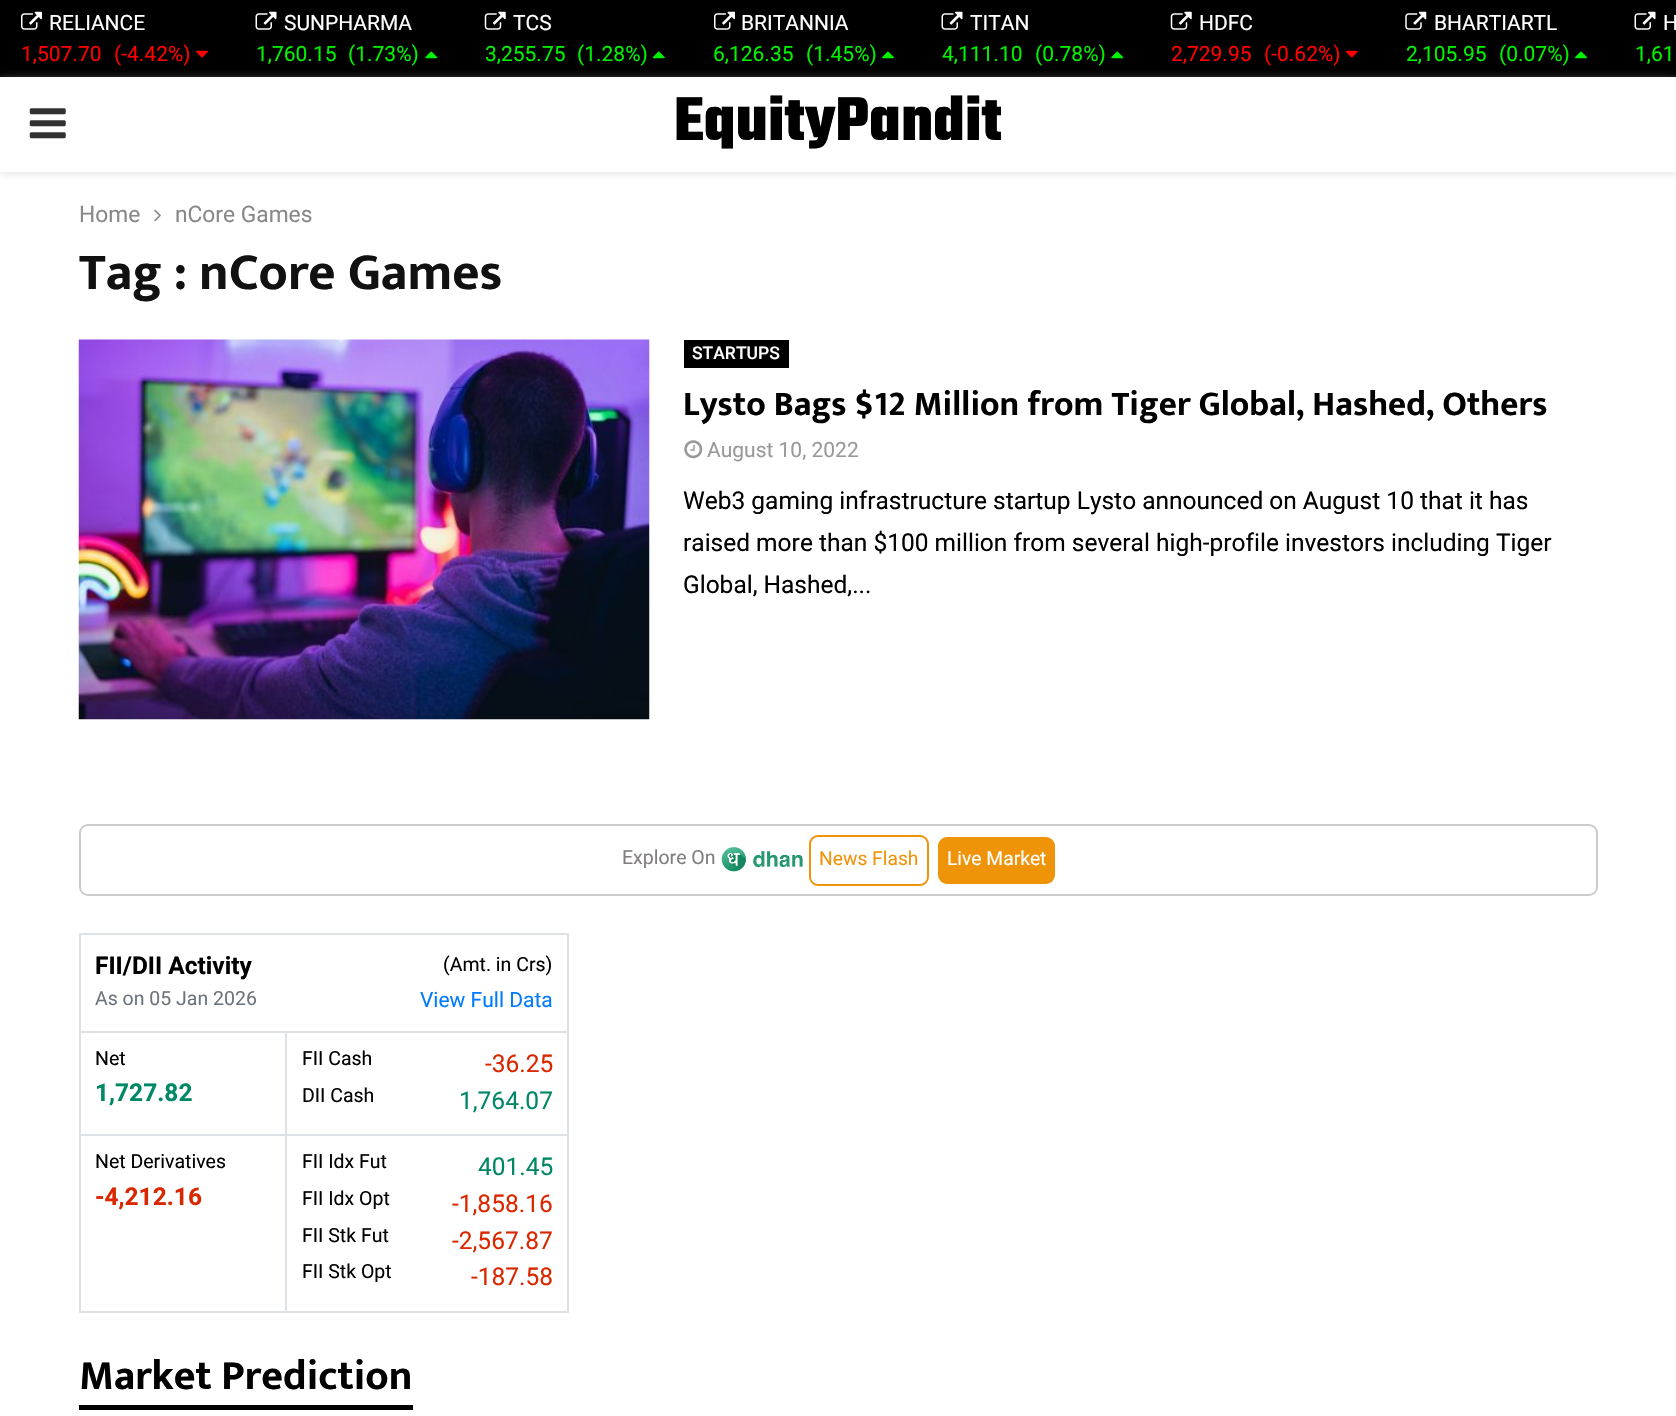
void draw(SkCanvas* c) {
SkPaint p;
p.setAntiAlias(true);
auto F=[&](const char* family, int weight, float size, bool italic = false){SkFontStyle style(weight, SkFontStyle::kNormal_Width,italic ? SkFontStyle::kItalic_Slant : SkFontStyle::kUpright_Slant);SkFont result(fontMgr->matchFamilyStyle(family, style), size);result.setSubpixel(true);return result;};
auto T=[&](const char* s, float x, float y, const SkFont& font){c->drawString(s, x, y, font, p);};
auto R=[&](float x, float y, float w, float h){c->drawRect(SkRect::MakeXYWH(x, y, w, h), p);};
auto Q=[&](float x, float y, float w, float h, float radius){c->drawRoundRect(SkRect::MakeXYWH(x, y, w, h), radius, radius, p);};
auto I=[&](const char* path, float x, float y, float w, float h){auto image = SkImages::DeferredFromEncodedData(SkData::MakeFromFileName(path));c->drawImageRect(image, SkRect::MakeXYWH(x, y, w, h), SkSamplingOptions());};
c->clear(0xffffffff);
p.setColor(0xff000000);
R(0,0,1676,77);
I("1.png",21,11,21,19);
auto f1 = F("Roboto",400,21);
p.setColor(0xffffffff);
T("RELIANCE",49,30,f1);
p.setColor(0xffff0000);
T("1,507.70",21,61,f1);
T("(-4.42%)",114,61,f1);
I("2.png",196,50,12,8);
I("3.png",255,11,22,19);
p.setColor(0xffffffff);
T("SUNPHARMA",284,30,f1);
p.setColor(0xff00f200);
T("1,760.15",256,61,f1);
T("(1.73%)",348,61,f1);
I("4.png",425,51,13,8);
I("5.png",484,11,22,19);
p.setColor(0xffffffff);
T("TCS",513,30,f1);
p.setColor(0xff00f200);
T("3,255.75",485,61,f1);
T("(1.28%)",577,61,f1);
I("6.png",652,51,13,8);
I("1.png",714,11,21,19);
p.setColor(0xffffffff);
T("BRITANNIA",741,30,f1);
p.setColor(0xff00f200);
T("6,126.35",713,61,f1);
T("(1.45%)",806,61,f1);
I("7.png",882,51,12,8);
I("3.png",941,11,22,19);
p.setColor(0xffffffff);
T("TITAN",970,30,f1);
p.setColor(0xff00f200);
T("4,111.10",942,61,f1);
T("(0.78%)",1035,61,f1);
I("4.png",1111,51,13,8);
I("8.png",1170,11,22,19);
p.setColor(0xffffffff);
T("HDFC",1199,30,f1);
p.setColor(0xffff0000);
T("2,729.95",1171,61,f1);
T("(-0.62%)",1264,61,f1);
I("9.png",1345,50,13,8);
I("10.png",1405,11,22,19);
p.setColor(0xffffffff);
T("BHARTIARTL",1434,30,f1);
p.setColor(0xff00f200);
T("2,105.95",1406,61,f1);
T("(0.07%)",1499,61,f1);
I("7.png",1575,51,12,8);
I("3.png",1634,11,22,19);
p.setColor(0xffffffff);
T("H",1663,30,f1);
p.setColor(0xff00f200);
T("1,61",1635,61,f1);
p.setColor(0x75bebebe);
p.setMaskFilter(SkMaskFilter::MakeBlur(kNormal_SkBlurStyle, 4.5));
c->drawRect(SkRect::MakeXYWH(0,79,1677,94),p);
p.setMaskFilter(nullptr);
p.setColor(0xffffffff);
R(0,77,1676,95);
I("11.png",29,108,37,31);
auto f2 = F("Teko",700,66.5);
p.setColor(0xff000000);
T("EquityPandit",674,140,f2);
auto f3 = F("Roboto",400,22.75);
p.setColor(0xff888888);
T("Home",79,222,f3);
I("12.png",154,209,7,13);
T("nCore Games",175,222,f3);
auto f4 = F("Mukta Vaani",700,52.5);
p.setColor(0xff111111);
T("Tag : nCore Games",79,289,f4);
I("13.png",78,339,572,381);
p.setColor(0xff000000);
R(684,340,105,28);
auto f5 = F("Roboto",500,17.5);
p.setColor(0xffffffff);
T("STARTUPS",692,359,f5);
auto f6 = F("Mukta Vaani",700,35);
p.setColor(0xff000000);
T("Lysto Bags $12 Million from Tiger Global, Hashed, Others",683,415,f6);
I("14.png",684,440,19,19);
p.setColor(0xff999999);
T("August 10, 2022",707,457,f1);
auto f7 = F("Roboto",400,24.5);
p.setColor(0xff000000);
T("Web3 gaming infrastructure startup Lysto announced on August 10 that it has",683,509,f7);
T("raised more than $100 million from several high-profile investors including Tiger",683,551,f7);
T("Global, Hashed,...",683,593,f7);
p.setStroke(true);
p.setStrokeWidth(2);
p.setColor(0xffcccccc);
c->drawRoundRect(SkRect::MakeXYWH(80,825,1517,70),8,8,p);
auto f8 = F("Roboto",400,19.5);
p.setStroke(false);
p.setColor(0xff817e7e);
T("Explore On",622,864,f8);
I("15.png",721,847,82,25);
p.setStroke(true);
p.setColor(0xffef9309);
c->drawRoundRect(SkRect::MakeXYWH(810,836,118,49),8,8,p);
auto f9 = F("Roboto",400,19.25);
p.setStroke(false);
T("News Flash",819,865,f9);
Q(938,837,117,47,9);
p.setColor(0xffffffff);
T("Live Market",947,865,f9);
p.setColor(0xffdee2e6);
R(79,933,490,2);
R(567,933,2,380);
R(79,1311,490,2);
R(79,933,2,380);
auto f10 = F("Roboto",700,24.5);
p.setColor(0xff000000);
T("FII/DII Activity",95,974,f10);
T("(Amt. in Crs)",443,971,f8);
p.setColor(0xff6c757d);
T("As on 05 Jan 2026",95,1005,f8);
p.setColor(0xff007bff);
T("View Full Data",420,1007,f1);
p.setColor(0xffdee2e6);
R(285,1031,282,2);
R(285,1134,282,2);
R(285,1134,2,177);
R(81,1134,206,2);
R(285,1031,2,105);
R(81,1031,206,2);
p.setColor(0xff000000);
T("Net",95,1065,f8);
p.setColor(0xff008866);
T("1,727.82",95,1101,f10);
p.setColor(0xff000000);
T("FII Cash",302,1065,f8);
p.setColor(0xffda2700);
T("-36.25",485,1072,f7);
p.setColor(0xff000000);
T("DII Cash",302,1102,f8);
p.setColor(0xff008866);
T("1,764.07",459,1109,f7);
p.setColor(0xff000000);
T("Net Derivatives",95,1168,f8);
p.setColor(0xffda2700);
T("-4,212.16",95,1205,f10);
p.setColor(0xff000000);
T("FII Idx Fut",302,1168,f8);
p.setColor(0xff008866);
T("401.45",478,1175,f7);
p.setColor(0xff000000);
T("FII Idx Opt",302,1205,f8);
p.setColor(0xffda2700);
T("-1,858.16",452,1212,f7);
p.setColor(0xff000000);
T("FII Stk Fut",302,1242,f8);
p.setColor(0xffda2700);
T("-2,567.87",452,1249,f7);
p.setColor(0xff000000);
T("FII Stk Opt",302,1278,f8);
p.setColor(0xffda2700);
T("-187.58",471,1285,f7);
p.setColor(0xff000000);
R(79,1405,334,5);
auto f11 = F("Mukta Vaani",700,42);
T("Market Prediction",79,1389,f11);
}
